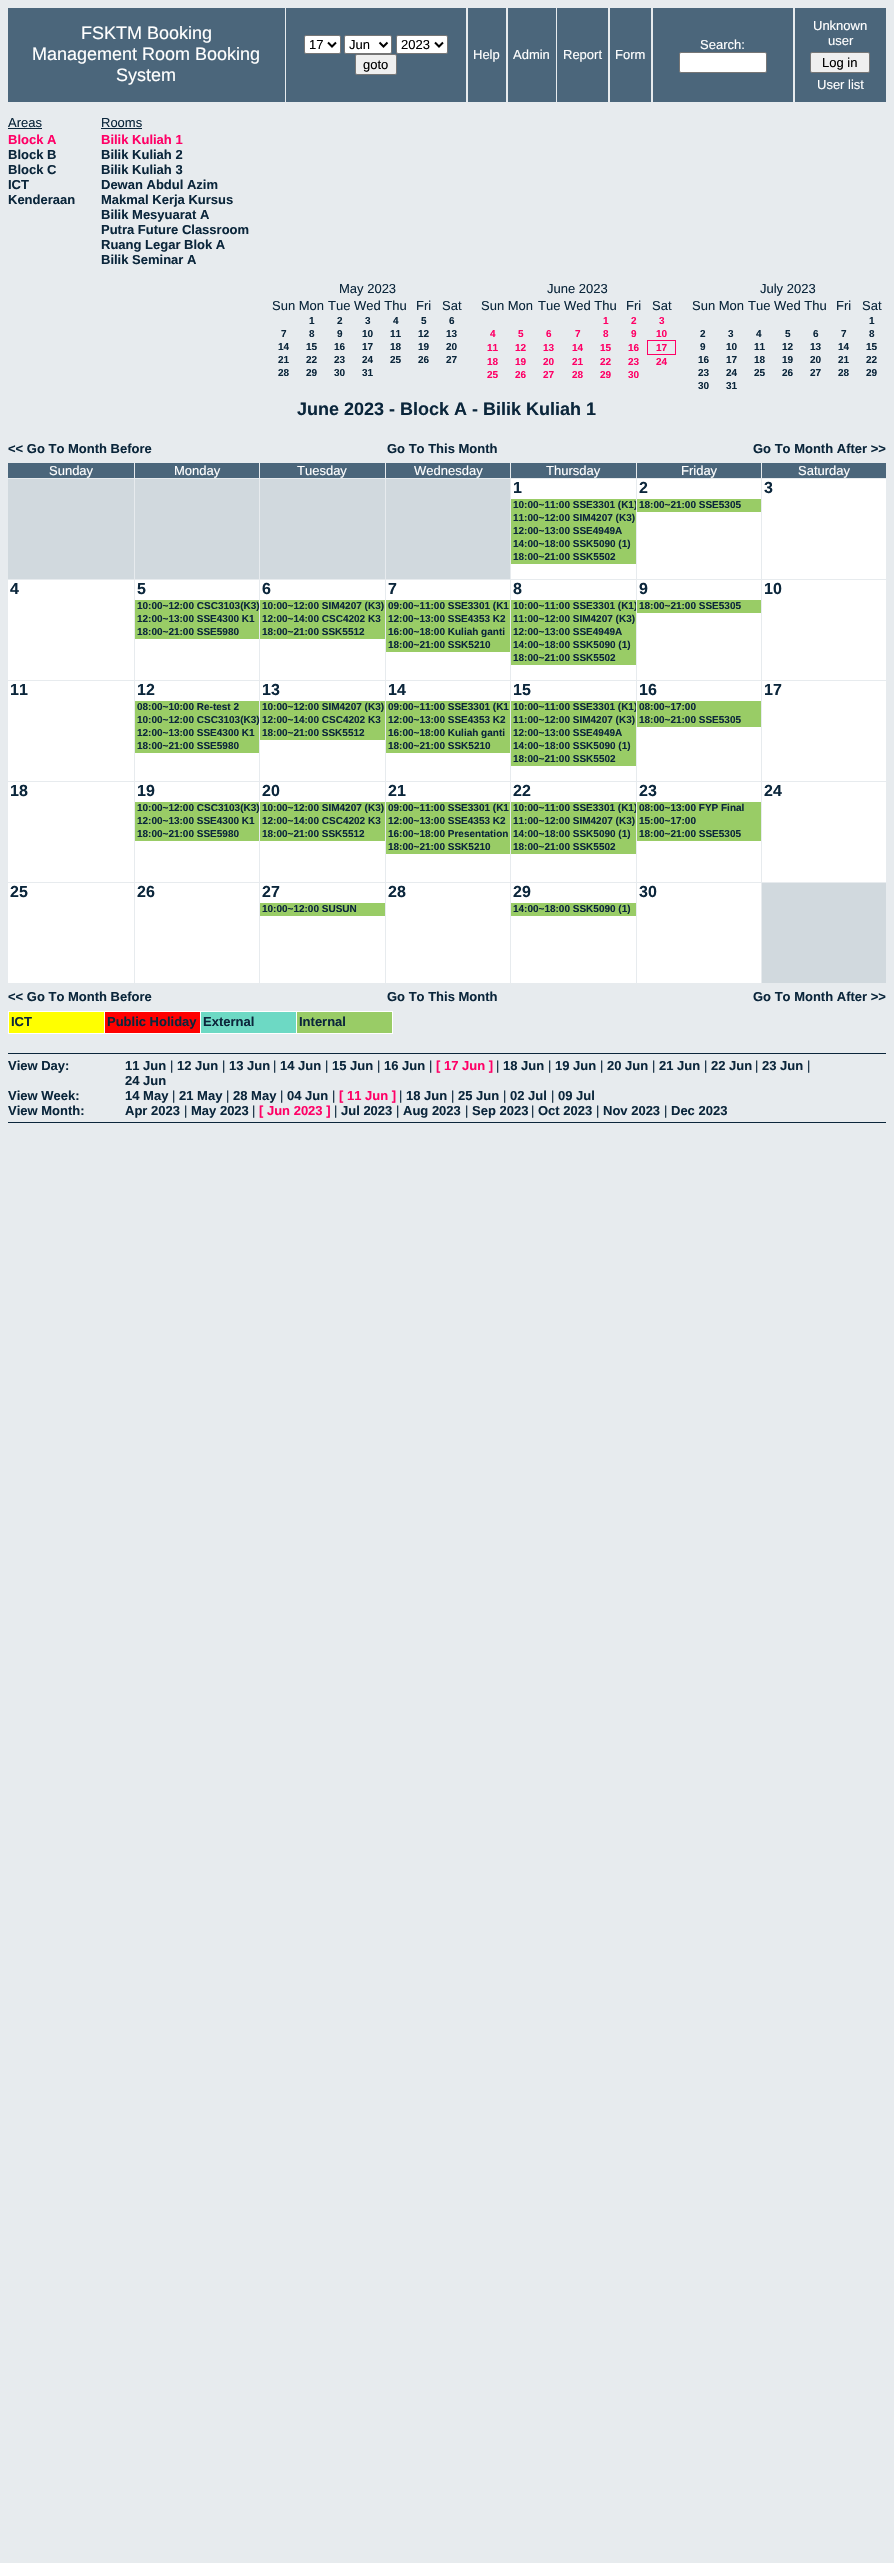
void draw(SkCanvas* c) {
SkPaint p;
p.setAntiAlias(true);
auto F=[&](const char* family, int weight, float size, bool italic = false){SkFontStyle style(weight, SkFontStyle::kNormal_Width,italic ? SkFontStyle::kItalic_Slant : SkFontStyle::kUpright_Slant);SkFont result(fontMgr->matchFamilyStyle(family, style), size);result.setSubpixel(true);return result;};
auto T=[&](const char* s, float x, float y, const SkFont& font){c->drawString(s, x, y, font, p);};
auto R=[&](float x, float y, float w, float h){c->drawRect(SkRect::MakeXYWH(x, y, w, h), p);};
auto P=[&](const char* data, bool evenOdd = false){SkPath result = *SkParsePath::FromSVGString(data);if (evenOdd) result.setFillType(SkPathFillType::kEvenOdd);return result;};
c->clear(0xffe7ebee);
p.setColor(0xff4b667b);
R(8,8,277,94);
auto f1 = F("Liberation Sans",400,18);
p.setColor(0xffffffff);
T("FSKTM Booking",81,39,f1);
T("Management Room Booking",32,60,f1);
T("System",116,81,f1);
p.setColor(0xff4b667b);
R(286,8,180,94);
p.setColor(0xffffffff);
c->drawRoundRect(SkRect::MakeXYWH(304.5,35.5,36,18),1.5,1.5,p);
p.setStroke(true);
p.setStrokeWidth(1);
p.setColor(0xff767676);
c->drawRoundRect(SkRect::MakeXYWH(304.5,35.5,36,18),1.5,1.5,p);
p.setStrokeWidth(2);
p.setColor(0xff000000);
c->drawPath(P("M328 42.5l4 4l4-4"),p);
auto f2 = F("Liberation Sans",400,13);
p.setStroke(false);
T("17",309,49,f2);
p.setColor(0xffffffff);
c->drawRoundRect(SkRect::MakeXYWH(344.5,35.5,47,18),1.5,1.5,p);
p.setStroke(true);
p.setStrokeWidth(1);
p.setColor(0xff767676);
c->drawRoundRect(SkRect::MakeXYWH(344.5,35.5,47,18),1.5,1.5,p);
p.setStrokeWidth(2);
p.setColor(0xff000000);
c->drawPath(P("M379.5 42.5l4 4l4-4"),p);
p.setStroke(false);
T("Jun",349,49,f2);
p.setColor(0xffffffff);
c->drawRoundRect(SkRect::MakeXYWH(396.5,35.5,51,18),1.5,1.5,p);
p.setStroke(true);
p.setStrokeWidth(1);
p.setColor(0xff767676);
c->drawRoundRect(SkRect::MakeXYWH(396.5,35.5,51,18),1.5,1.5,p);
p.setStrokeWidth(2);
p.setColor(0xff000000);
c->drawPath(P("M435 42.5l4 4l4-4"),p);
p.setStroke(false);
T("2023",401,49,f2);
p.setColor(0xffefefef);
c->drawRoundRect(SkRect::MakeXYWH(355.5,54.5,41,20),1.5,1.5,p);
p.setStroke(true);
p.setStrokeWidth(1);
p.setColor(0xff767676);
c->drawRoundRect(SkRect::MakeXYWH(355.5,54.5,41,20),1.5,1.5,p);
p.setStroke(false);
p.setColor(0xff000000);
T("goto",363,69,f2);
p.setColor(0xff4b667b);
R(653,8,140,94);
p.setColor(0xffffffff);
T("Search:",700,49,f2);
c->drawRoundRect(SkRect::MakeXYWH(679.5,52.5,87,20),1.5,1.5,p);
p.setStroke(true);
p.setColor(0xff767676);
c->drawRoundRect(SkRect::MakeXYWH(679.5,52.5,87,20),1.5,1.5,p);
p.setStroke(false);
p.setColor(0xff4b667b);
R(795,8,91,94);
p.setColor(0xffffffff);
T("Unknown",813,30,f2);
T("user",828,45,f2);
p.setColor(0xffefefef);
c->drawRoundRect(SkRect::MakeXYWH(810.5,52.5,59,20),1.5,1.5,p);
p.setStroke(true);
p.setColor(0xff767676);
c->drawRoundRect(SkRect::MakeXYWH(810.5,52.5,59,20),1.5,1.5,p);
p.setStroke(false);
p.setColor(0xff000000);
T("Log in",822,67,f2);
p.setColor(0xffffffff);
T("User list",817,89,f2);
p.setColor(0xff4b667b);
R(468,8,38,94);
p.setColor(0xffffffff);
T("Help",473,59,f2);
p.setColor(0xff4b667b);
R(508,8,48,94);
p.setColor(0xffffffff);
T("Admin",513,59,f2);
p.setColor(0xff4b667b);
R(557,8,51,94);
p.setColor(0xffffffff);
T("Report",563,59,f2);
p.setColor(0xff4b667b);
R(610,8,41,94);
p.setColor(0xffffffff);
T("Form",615,59,f2);
p.setColor(0xff0b263b);
T("Areas",8,127,f2);
R(8,128,34,1);
auto f3 = F("Liberation Sans",700,13);
p.setColor(0xffff0066);
T("Block A",8,144,f3);
p.setColor(0xff0b263b);
T("Block B",8,159,f3);
T("Block C",8,174,f3);
T("ICT",8,189,f3);
T("Kenderaan",8,204,f3);
T("Rooms",101,127,f2);
R(101,128,41,1);
p.setColor(0xffff0066);
T("Bilik Kuliah 1",101,144,f3);
p.setColor(0xff0b263b);
T("Bilik Kuliah 2",101,159,f3);
T("Bilik Kuliah 3",101,174,f3);
T("Dewan Abdul Azim",101,189,f3);
T("Makmal Kerja Kursus",101,204,f3);
T("Bilik Mesyuarat A",101,219,f3);
T("Putra Future Classroom",101,234,f3);
T("Ruang Legar Blok A",101,249,f3);
T("Bilik Seminar A",101,264,f3);
T("May 2023",339,293,f2);
T("Sun Mon",272,310,f2);
T("Tue Wed Thu",328,310,f2);
T("Fri",416,310,f2);
T("Sat",442,310,f2);
auto f4 = F("Liberation Sans",700,10);
T("1",309,324,f4);
T("2",337,324,f4);
T("3",365,324,f4);
T("4",393,324,f4);
T("5",421,324,f4);
T("6",449,324,f4);
T("7",281,337,f4);
T("8",309,337,f4);
T("9",337,337,f4);
T("10",362,337,f4);
T("11",390,337,f4);
T("12",418,337,f4);
T("13",446,337,f4);
T("14",278,350,f4);
T("15",306,350,f4);
T("16",334,350,f4);
T("17",362,350,f4);
T("18",390,350,f4);
T("19",418,350,f4);
T("20",446,350,f4);
T("21",278,363,f4);
T("22",306,363,f4);
T("23",334,363,f4);
T("24",362,363,f4);
T("25",390,363,f4);
T("26",418,363,f4);
T("27",446,363,f4);
T("28",278,376,f4);
T("29",306,376,f4);
T("30",334,376,f4);
T("31",362,376,f4);
T("June 2023",547,293,f2);
T("Sun Mon",481,310,f2);
T("Tue Wed Thu",538,310,f2);
T("Fri",626,310,f2);
T("Sat",652,310,f2);
p.setColor(0xffff0066);
T("1",603,324,f4);
T("2",631,324,f4);
T("3",659,324,f4);
T("4",490,337,f4);
T("5",518,337,f4);
T("6",546,337,f4);
T("7",575,337,f4);
T("8",603,337,f4);
T("9",631,337,f4);
T("10",656,337,f4);
T("11",487,351,f4);
T("12",515,351,f4);
T("13",543,351,f4);
T("14",572,351,f4);
T("15",600,351,f4);
T("16",628,351,f4);
R(647,340,29,1);
R(675,340,1,15);
R(647,354,29,1);
R(647,340,1,15);
T("17",656,351,f4);
T("18",487,365,f4);
T("19",515,365,f4);
T("20",543,365,f4);
T("21",572,365,f4);
T("22",600,365,f4);
T("23",628,365,f4);
T("24",656,365,f4);
T("25",487,378,f4);
T("26",515,378,f4);
T("27",543,378,f4);
T("28",572,378,f4);
T("29",600,378,f4);
T("30",628,378,f4);
p.setColor(0xff0b263b);
T("July 2023",760,293,f2);
T("Sun Mon",692,310,f2);
T("Tue Wed Thu",748,310,f2);
T("Fri",836,310,f2);
T("Sat",862,310,f2);
T("1",869,324,f4);
T("2",700,337,f4);
T("3",728,337,f4);
T("4",756,337,f4);
T("5",785,337,f4);
T("6",813,337,f4);
T("7",841,337,f4);
T("8",869,337,f4);
T("9",700,350,f4);
T("10",726,350,f4);
T("11",754,350,f4);
T("12",782,350,f4);
T("13",810,350,f4);
T("14",838,350,f4);
T("15",866,350,f4);
T("16",698,363,f4);
T("17",726,363,f4);
T("18",754,363,f4);
T("19",782,363,f4);
T("20",810,363,f4);
T("21",838,363,f4);
T("22",866,363,f4);
T("23",698,376,f4);
T("24",726,376,f4);
T("25",754,376,f4);
T("26",782,376,f4);
T("27",810,376,f4);
T("28",838,376,f4);
T("29",866,376,f4);
T("30",698,389,f4);
T("31",726,389,f4);
auto f5 = F("Liberation Sans",700,18);
T("June 2023 - Block A - Bilik Kuliah 1",297,415,f5);
T("<< Go To Month Before",8,453,f3);
T("Go To This Month",387,453,f3);
T("Go To Month After >>",753,453,f3);
p.setColor(0xff4b667b);
R(8,463,126,15);
p.setColor(0xffffffff);
T("Sunday",49,475,f2);
p.setColor(0xff4b667b);
R(135,463,124,15);
p.setColor(0xffffffff);
T("Monday",174,475,f2);
p.setColor(0xff4b667b);
R(260,463,125,15);
p.setColor(0xffffffff);
T("Tuesday",297,475,f2);
p.setColor(0xff4b667b);
R(386,463,124,15);
p.setColor(0xffffffff);
T("Wednesday",414,475,f2);
p.setColor(0xff4b667b);
R(511,463,125,15);
p.setColor(0xffffffff);
T("Thursday",546,475,f2);
p.setColor(0xff4b667b);
R(637,463,124,15);
p.setColor(0xffffffff);
T("Friday",681,475,f2);
p.setColor(0xff4b667b);
R(762,463,124,15);
p.setColor(0xffffffff);
T("Saturday",798,475,f2);
p.setColor(0xffd1d9de);
R(8,479,126,100);
R(135,479,124,100);
R(260,479,125,100);
R(386,479,124,100);
p.setColor(0xffffffff);
R(511,479,125,100);
auto f6 = F("Liberation Sans",700,16);
p.setColor(0xff0b263b);
T("1",513,493,f6);
p.setColor(0xff99cc66);
R(511,499,125,65);
c->save();
c->clipRect(SkRect::MakeXYWH(511,499,125,13));
p.setColor(0xff0b263b);
T("10:00~11:00 SSE3301 (K1)",513,508,f4);
c->restore();
T("11:00~12:00 SIM4207 (K3)",513,521,f4);
T("12:00~13:00 SSE4949A",513,534,f4);
T("14:00~18:00 SSK5090 (1)",513,547,f4);
T("18:00~21:00 SSK5502",513,560,f4);
p.setColor(0xffffffff);
R(637,479,124,100);
p.setColor(0xff0b263b);
T("2",639,493,f6);
p.setColor(0xff99cc66);
R(637,499,124,13);
p.setColor(0xff0b263b);
T("18:00~21:00 SSE5305",639,508,f4);
p.setColor(0xffffffff);
R(762,479,124,100);
p.setColor(0xff0b263b);
T("3",764,493,f6);
p.setColor(0xffffffff);
R(8,580,126,100);
p.setColor(0xff0b263b);
T("4",10,594,f6);
p.setColor(0xffffffff);
R(135,580,124,100);
p.setColor(0xff0b263b);
T("5",137,594,f6);
p.setColor(0xff99cc66);
R(135,600,124,39);
p.setColor(0xff0b263b);
T("10:00~12:00 CSC3103(K3)",137,609,f4);
T("12:00~13:00 SSE4300 K1",137,622,f4);
T("18:00~21:00 SSE5980",137,635,f4);
p.setColor(0xffffffff);
R(260,580,125,100);
p.setColor(0xff0b263b);
T("6",262,594,f6);
p.setColor(0xff99cc66);
R(260,600,125,39);
p.setColor(0xff0b263b);
T("10:00~12:00 SIM4207 (K3)",262,609,f4);
T("12:00~14:00 CSC4202 K3",262,622,f4);
T("18:00~21:00 SSK5512",262,635,f4);
p.setColor(0xffffffff);
R(386,580,124,100);
p.setColor(0xff0b263b);
T("7",388,594,f6);
p.setColor(0xff99cc66);
R(386,600,124,52);
p.setColor(0xff0b263b);
T("09:00~11:00 SSE3301 (K1",388,609,f4);
T("12:00~13:00 SSE4353 K2",388,622,f4);
T("16:00~18:00 Kuliah ganti",388,635,f4);
T("18:00~21:00 SSK5210",388,648,f4);
p.setColor(0xffffffff);
R(511,580,125,100);
p.setColor(0xff0b263b);
T("8",513,594,f6);
p.setColor(0xff99cc66);
R(511,600,125,65);
c->save();
c->clipRect(SkRect::MakeXYWH(511,600,125,13));
p.setColor(0xff0b263b);
T("10:00~11:00 SSE3301 (K1)",513,609,f4);
c->restore();
T("11:00~12:00 SIM4207 (K3)",513,622,f4);
T("12:00~13:00 SSE4949A",513,635,f4);
T("14:00~18:00 SSK5090 (1)",513,648,f4);
T("18:00~21:00 SSK5502",513,661,f4);
p.setColor(0xffffffff);
R(637,580,124,100);
p.setColor(0xff0b263b);
T("9",639,594,f6);
p.setColor(0xff99cc66);
R(637,600,124,13);
p.setColor(0xff0b263b);
T("18:00~21:00 SSE5305",639,609,f4);
p.setColor(0xffffffff);
R(762,580,124,100);
p.setColor(0xff0b263b);
T("10",764,594,f6);
p.setColor(0xffffffff);
R(8,681,126,100);
p.setColor(0xff0b263b);
T("11",10,695,f6);
p.setColor(0xffffffff);
R(135,681,124,100);
p.setColor(0xff0b263b);
T("12",137,695,f6);
p.setColor(0xff99cc66);
R(135,701,124,52);
p.setColor(0xff0b263b);
T("08:00~10:00 Re-test 2",137,710,f4);
T("10:00~12:00 CSC3103(K3)",137,723,f4);
T("12:00~13:00 SSE4300 K1",137,736,f4);
T("18:00~21:00 SSE5980",137,749,f4);
p.setColor(0xffffffff);
R(260,681,125,100);
p.setColor(0xff0b263b);
T("13",262,695,f6);
p.setColor(0xff99cc66);
R(260,701,125,39);
p.setColor(0xff0b263b);
T("10:00~12:00 SIM4207 (K3)",262,710,f4);
T("12:00~14:00 CSC4202 K3",262,723,f4);
T("18:00~21:00 SSK5512",262,736,f4);
p.setColor(0xffffffff);
R(386,681,124,100);
p.setColor(0xff0b263b);
T("14",388,695,f6);
p.setColor(0xff99cc66);
R(386,701,124,52);
p.setColor(0xff0b263b);
T("09:00~11:00 SSE3301 (K1",388,710,f4);
T("12:00~13:00 SSE4353 K2",388,723,f4);
T("16:00~18:00 Kuliah ganti",388,736,f4);
T("18:00~21:00 SSK5210",388,749,f4);
p.setColor(0xffffffff);
R(511,681,125,100);
p.setColor(0xff0b263b);
T("15",513,695,f6);
p.setColor(0xff99cc66);
R(511,701,125,65);
c->save();
c->clipRect(SkRect::MakeXYWH(511,701,125,13));
p.setColor(0xff0b263b);
T("10:00~11:00 SSE3301 (K1)",513,710,f4);
c->restore();
T("11:00~12:00 SIM4207 (K3)",513,723,f4);
T("12:00~13:00 SSE4949A",513,736,f4);
T("14:00~18:00 SSK5090 (1)",513,749,f4);
T("18:00~21:00 SSK5502",513,762,f4);
p.setColor(0xffffffff);
R(637,681,124,100);
p.setColor(0xff0b263b);
T("16",639,695,f6);
p.setColor(0xff99cc66);
R(637,701,124,26);
p.setColor(0xff0b263b);
T("08:00~17:00",639,710,f4);
T("18:00~21:00 SSE5305",639,723,f4);
p.setColor(0xffffffff);
R(762,681,124,100);
p.setColor(0xff0b263b);
T("17",764,695,f6);
p.setColor(0xffffffff);
R(8,782,126,100);
p.setColor(0xff0b263b);
T("18",10,796,f6);
p.setColor(0xffffffff);
R(135,782,124,100);
p.setColor(0xff0b263b);
T("19",137,796,f6);
p.setColor(0xff99cc66);
R(135,802,124,39);
p.setColor(0xff0b263b);
T("10:00~12:00 CSC3103(K3)",137,811,f4);
T("12:00~13:00 SSE4300 K1",137,824,f4);
T("18:00~21:00 SSE5980",137,837,f4);
p.setColor(0xffffffff);
R(260,782,125,100);
p.setColor(0xff0b263b);
T("20",262,796,f6);
p.setColor(0xff99cc66);
R(260,802,125,39);
p.setColor(0xff0b263b);
T("10:00~12:00 SIM4207 (K3)",262,811,f4);
T("12:00~14:00 CSC4202 K3",262,824,f4);
T("18:00~21:00 SSK5512",262,837,f4);
p.setColor(0xffffffff);
R(386,782,124,100);
p.setColor(0xff0b263b);
T("21",388,796,f6);
p.setColor(0xff99cc66);
R(386,802,124,52);
p.setColor(0xff0b263b);
T("09:00~11:00 SSE3301 (K1",388,811,f4);
T("12:00~13:00 SSE4353 K2",388,824,f4);
T("16:00~18:00 Presentation",388,837,f4);
T("18:00~21:00 SSK5210",388,850,f4);
p.setColor(0xffffffff);
R(511,782,125,100);
p.setColor(0xff0b263b);
T("22",513,796,f6);
p.setColor(0xff99cc66);
R(511,802,125,52);
c->save();
c->clipRect(SkRect::MakeXYWH(511,802,125,13));
p.setColor(0xff0b263b);
T("10:00~11:00 SSE3301 (K1)",513,811,f4);
c->restore();
T("11:00~12:00 SIM4207 (K3)",513,824,f4);
T("14:00~18:00 SSK5090 (1)",513,837,f4);
T("18:00~21:00 SSK5502",513,850,f4);
p.setColor(0xffffffff);
R(637,782,124,100);
p.setColor(0xff0b263b);
T("23",639,796,f6);
p.setColor(0xff99cc66);
R(637,802,124,39);
p.setColor(0xff0b263b);
T("08:00~13:00 FYP Final",639,811,f4);
T("15:00~17:00",639,824,f4);
T("18:00~21:00 SSE5305",639,837,f4);
p.setColor(0xffffffff);
R(762,782,124,100);
p.setColor(0xff0b263b);
T("24",764,796,f6);
p.setColor(0xffffffff);
R(8,883,126,100);
p.setColor(0xff0b263b);
T("25",10,897,f6);
p.setColor(0xffffffff);
R(135,883,124,100);
p.setColor(0xff0b263b);
T("26",137,897,f6);
p.setColor(0xffffffff);
R(260,883,125,100);
p.setColor(0xff0b263b);
T("27",262,897,f6);
p.setColor(0xff99cc66);
R(260,903,125,13);
p.setColor(0xff0b263b);
T("10:00~12:00 SUSUN",262,912,f4);
p.setColor(0xffffffff);
R(386,883,124,100);
p.setColor(0xff0b263b);
T("28",388,897,f6);
p.setColor(0xffffffff);
R(511,883,125,100);
p.setColor(0xff0b263b);
T("29",513,897,f6);
p.setColor(0xff99cc66);
R(511,903,125,13);
p.setColor(0xff0b263b);
T("14:00~18:00 SSK5090 (1)",513,912,f4);
p.setColor(0xffffffff);
R(637,883,124,100);
p.setColor(0xff0b263b);
T("30",639,897,f6);
p.setColor(0xffd1d9de);
R(762,883,124,100);
p.setColor(0xff0b263b);
T("<< Go To Month Before",8,1001,f3);
T("Go To This Month",387,1001,f3);
T("Go To Month After >>",753,1001,f3);
p.setColor(0xffffff00);
R(9,1012,95,21);
p.setColor(0xffffffff);
R(296,1011,97,1);
R(392,1011,1,23);
R(296,1033,97,1);
R(296,1011,1,23);
R(200,1011,97,1);
R(200,1033,97,1);
R(200,1011,1,23);
R(104,1011,97,1);
R(104,1033,97,1);
R(104,1011,1,23);
R(8,1011,97,1);
R(8,1033,97,1);
R(8,1011,1,23);
p.setColor(0xff0b263b);
T("ICT",11,1026,f3);
p.setColor(0xffff0000);
R(105,1012,95,21);
p.setColor(0xff0b263b);
T("Public Holiday",107,1026,f3);
p.setColor(0xff6dd9c4);
R(201,1012,95,21);
p.setColor(0xff0b263b);
T("External",203,1026,f3);
p.setColor(0xff99cc66);
R(297,1012,95,21);
p.setColor(0xff0b263b);
T("Internal",299,1026,f3);
R(8,1053,878,1);
R(8,1122,878,1);
T("View Day:",8,1070,f3);
T("11 Jun",125,1070,f3);
T("|",170,1070,f2);
T("12 Jun",177,1070,f3);
T("|",222,1070,f2);
T("13 Jun",229,1070,f3);
T("|",273,1070,f2);
T("14 Jun",280,1070,f3);
T("|",325,1070,f2);
T("15 Jun",332,1070,f3);
T("|",377,1070,f2);
T("16 Jun",384,1070,f3);
T("|",429,1070,f2);
p.setColor(0xffff0066);
T("[ 17 Jun ]",436,1070,f3);
p.setColor(0xff0b263b);
T("|",496,1070,f2);
T("18 Jun",503,1070,f3);
T("|",548,1070,f2);
T("19 Jun",555,1070,f3);
T("|",600,1070,f2);
T("20 Jun",607,1070,f3);
T("|",652,1070,f2);
T("21 Jun",659,1070,f3);
T("|",704,1070,f2);
T("22 Jun",711,1070,f3);
T("|",755,1070,f2);
T("23 Jun",762,1070,f3);
T("|",807,1070,f2);
T("24 Jun",125,1085,f3);
T("View Week:",8,1100,f3);
T("14 May",125,1100,f3);
T("|",172,1100,f2);
T("21 May",179,1100,f3);
T("|",226,1100,f2);
T("28 May",233,1100,f3);
T("|",280,1100,f2);
T("04 Jun",287,1100,f3);
T("|",332,1100,f2);
p.setColor(0xffff0066);
T("[ 11 Jun ]",339,1100,f3);
p.setColor(0xff0b263b);
T("|",399,1100,f2);
T("18 Jun",406,1100,f3);
T("|",451,1100,f2);
T("25 Jun",458,1100,f3);
T("|",503,1100,f2);
T("02 Jul",510,1100,f3);
T("|",551,1100,f2);
T("09 Jul",558,1100,f3);
T("View Month:",8,1115,f3);
T("Apr 2023",125,1115,f3);
T("|",184,1115,f2);
T("May 2023",191,1115,f3);
T("|",252,1115,f2);
p.setColor(0xffff0066);
T("[ Jun 2023 ]",259,1115,f3);
p.setColor(0xff0b263b);
T("|",334,1115,f2);
T("Jul 2023",341,1115,f3);
T("|",396,1115,f2);
T("Aug 2023",403,1115,f3);
T("|",465,1115,f2);
T("Sep 2023",472,1115,f3);
T("|",531,1115,f2);
T("Oct 2023",538,1115,f3);
T("|",596,1115,f2);
T("Nov 2023",603,1115,f3);
T("|",664,1115,f2);
T("Dec 2023",671,1115,f3);
}
